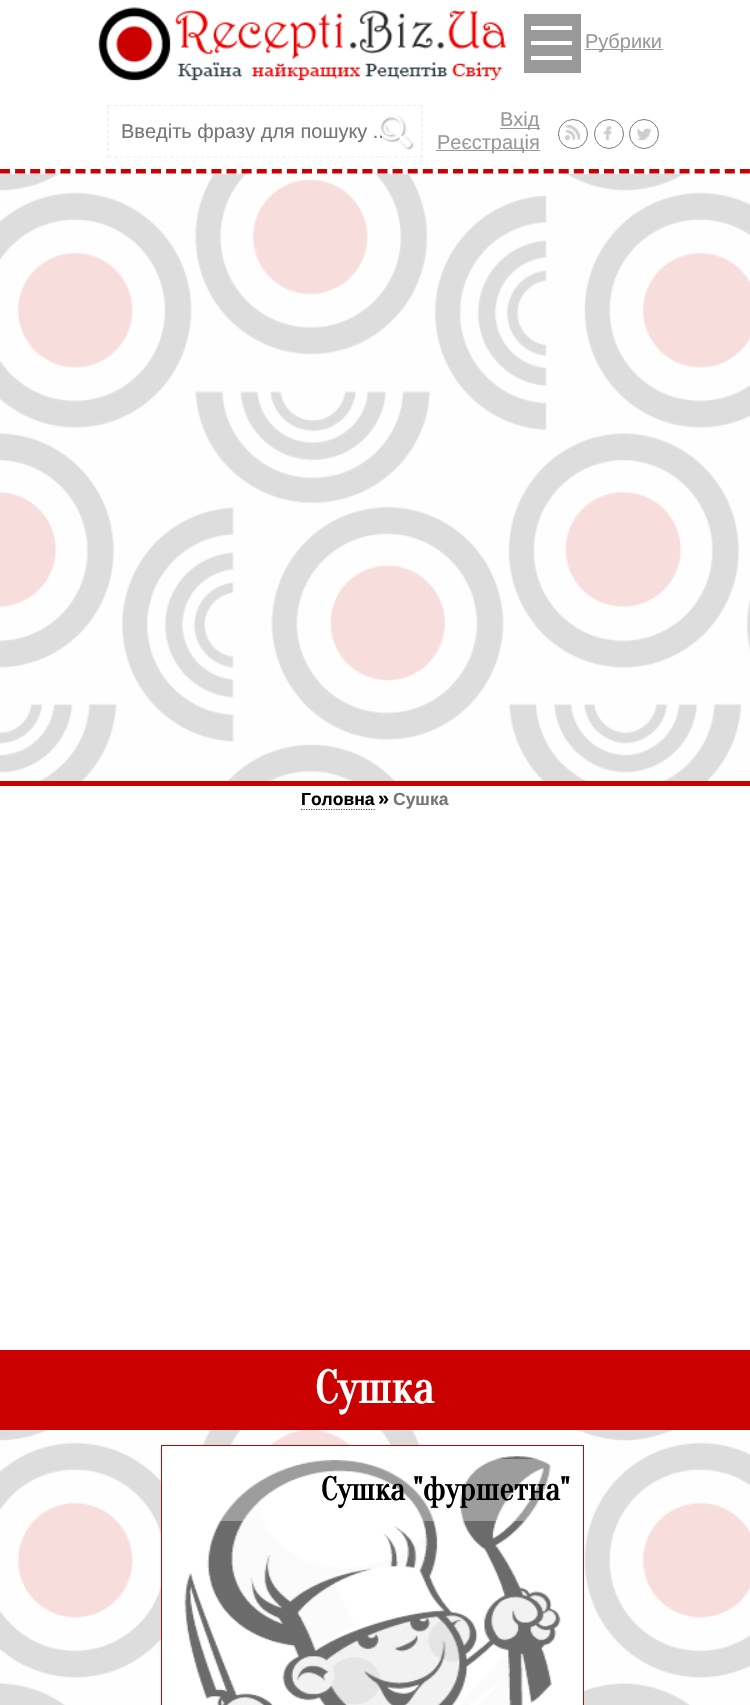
void draw(SkCanvas* c) {
SkPaint p;
p.setAntiAlias(true);
auto F=[&](const char* family, int weight, float size, bool italic = false){SkFontStyle style(weight, SkFontStyle::kNormal_Width,italic ? SkFontStyle::kItalic_Slant : SkFontStyle::kUpright_Slant);SkFont result(fontMgr->matchFamilyStyle(family, style), size);result.setSubpixel(true);return result;};
auto T=[&](const char* s, float x, float y, const SkFont& font){c->drawString(s, x, y, font, p);};
auto R=[&](float x, float y, float w, float h){c->drawRect(SkRect::MakeXYWH(x, y, w, h), p);};
auto I=[&](const char* path, float x, float y, float w, float h){auto image = SkImages::DeferredFromEncodedData(SkData::MakeFromFileName(path));c->drawImageRect(image, SkRect::MakeXYWH(x, y, w, h), SkSamplingOptions());};
auto P=[&](const char* data, bool evenOdd = false){SkPath result = *SkParsePath::FromSVGString(data);if (evenOdd) result.setFillType(SkPathFillType::kEvenOdd);return result;};
c->clear(0xffffffff);
I("1.png",0,174,750,1531);
p.setStroke(true);
p.setStrokeWidth(5);
p.setColor(0xffcb0000);
p.setPathEffect(SkDashPathEffect::Make({{10,5.1f}}, 0));
c->drawPath(P("M0 171h750"),p);
p.setPathEffect(nullptr);
p.setStroke(false);
p.setColor(0xffffffff);
R(0,168,750,1);
I("2.png",98,7,409,74);
p.setColor(0xff999999);
R(524,14,57,59);
auto f1 = F("Liberation Sans",700,41);
p.setColor(0xffffffff);
T("—",531,39,f1);
T("—",531,54,f1);
T("—",531,69,f1);
p.setColor(0xff999999);
R(585,49,78,1);
auto f2 = F("Liberation Sans",400,20);
T("Рубрики",585,48,f2);
p.setStroke(true);
p.setStrokeWidth(1.2);
p.setColor(0xffeeeeee);
p.setPathEffect(SkDashPathEffect::Make({{3.75f,2.48f}}, 0));
c->drawPath(P("M107.5 105.5h315"),p);
p.setPathEffect(nullptr);
p.setPathEffect(SkDashPathEffect::Make({{3.75f,2.35f}}, 0));
c->drawPath(P("M422 105v52.5"),p);
p.setPathEffect(nullptr);
p.setPathEffect(SkDashPathEffect::Make({{3.75f,2.48f}}, 0));
c->drawPath(P("M107.5 157h315"),p);
p.setPathEffect(nullptr);
p.setPathEffect(SkDashPathEffect::Make({{3.75f,2.35f}}, 0));
c->drawPath(P("M108 105v52.5"),p);
p.setPathEffect(nullptr);
p.setStroke(false);
p.setColor(0xff757575);
T("Введіть фразу для пошуку ..",121,138,f2);
I("3.png",379,115,35,35);
p.setColor(0xff999999);
R(500,128,40,1);
T("Вхід",500,126,f2);
R(436,150,104,1);
T("Реєстрація",437,149,f2);
I("4.png",564,124,17,17);
p.setStroke(true);
p.setStrokeWidth(1);
p.setColor(0xff7a7a7a);
c->drawCircle(573,134,14.5,p);
I("5.png",603,126,9,15);
c->drawCircle(609,134,14.5,p);
I("6.png",637,128,15,13);
c->drawCircle(644,134,14.5,p);
p.setStroke(false);
p.setColor(0xdefefefe);
R(0,174,750,1531);
p.setColor(0xffffffff);
R(0,786,750,564);
p.setColor(0xffcb0000);
R(0,781,750,5);
p.setStroke(true);
p.setStrokeWidth(1.2);
p.setColor(0xff555555);
p.setPathEffect(SkDashPathEffect::Make({{1.25f,1.25f}}, 0));
c->drawPath(P("M301 809.5h74"),p);
p.setPathEffect(nullptr);
auto f3 = F("Liberation Sans",700,17.5);
p.setStroke(false);
p.setColor(0xff000000);
T("Головна",301,805,f3);
auto f4 = F("Liberation Sans",700,20);
T("»",378,805,f4);
p.setColor(0xff757575);
T("Сушка",393,805,f3);
p.setColor(0xffcb0000);
R(0,1350,750,80);
auto f5 = F("Oranienbaum",700,46);
p.setColor(0xffffffff);
T("Сушка",315,1403,f5);
c->drawRect(SkRect::MakeXYWH(161.5,1445.5,422,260),p);
p.setStroke(true);
p.setStrokeWidth(1);
p.setColor(0xffcb0000);
c->drawRect(SkRect::MakeXYWH(161.5,1445.5,422,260),p);
I("7.png",184,1456,377,249);
p.setStroke(false);
p.setColor(0x54ffffff);
R(219,1459,332,62);
auto f6 = F("Oranienbaum",700,32.5);
p.setColor(0xff000000);
T("Сушка \"фуршетна\"",321,1500,f6);
}
